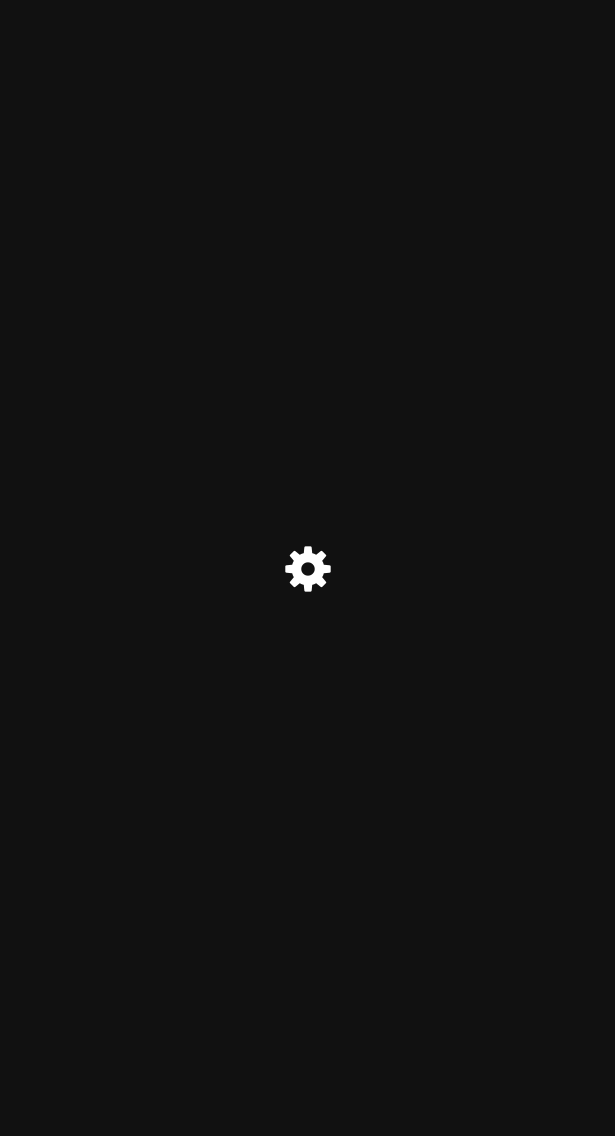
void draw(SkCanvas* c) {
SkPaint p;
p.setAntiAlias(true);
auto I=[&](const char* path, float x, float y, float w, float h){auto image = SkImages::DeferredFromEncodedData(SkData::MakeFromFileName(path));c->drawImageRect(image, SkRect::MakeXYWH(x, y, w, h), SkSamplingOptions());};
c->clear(0xff111111);
I("1.png",285,546,46,46);
}
